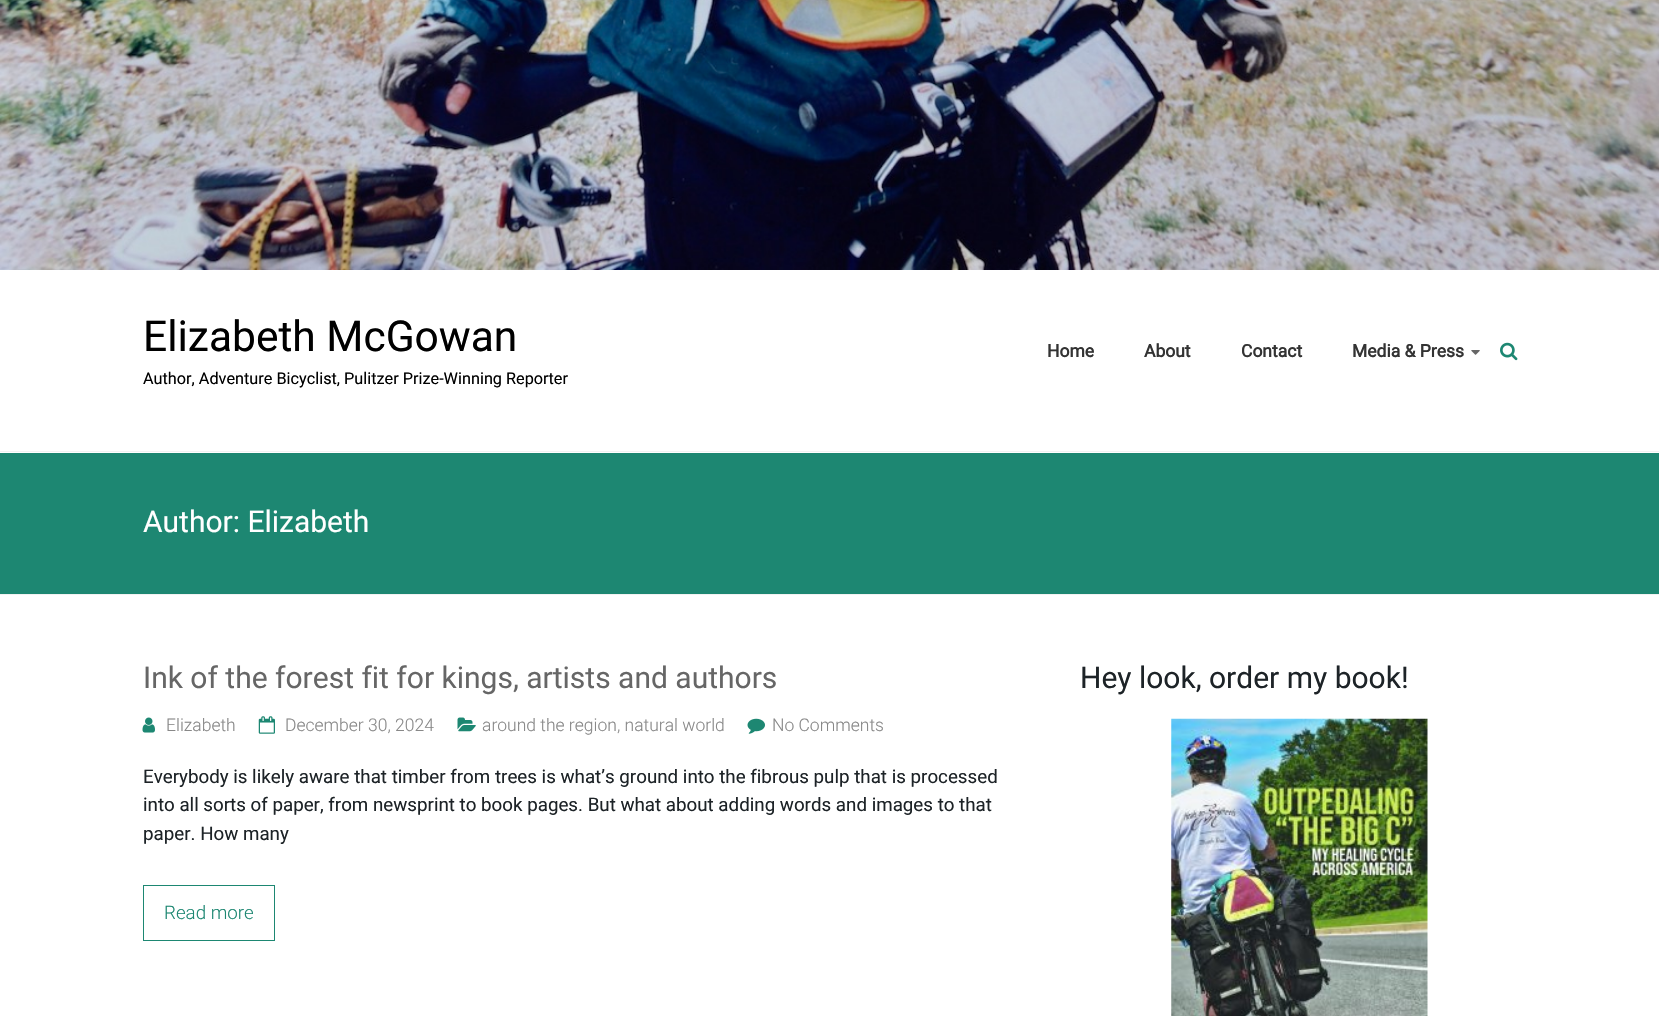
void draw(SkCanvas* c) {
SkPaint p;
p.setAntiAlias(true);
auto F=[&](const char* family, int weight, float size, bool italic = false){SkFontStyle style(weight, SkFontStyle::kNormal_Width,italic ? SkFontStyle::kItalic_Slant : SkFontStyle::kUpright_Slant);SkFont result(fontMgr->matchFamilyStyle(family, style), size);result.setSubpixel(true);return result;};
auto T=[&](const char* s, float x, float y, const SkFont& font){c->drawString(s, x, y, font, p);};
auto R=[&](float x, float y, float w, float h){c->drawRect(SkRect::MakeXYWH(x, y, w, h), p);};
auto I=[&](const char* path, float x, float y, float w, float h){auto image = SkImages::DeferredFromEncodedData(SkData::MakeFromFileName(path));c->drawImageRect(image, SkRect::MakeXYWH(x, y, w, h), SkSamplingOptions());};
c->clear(0xffffffff);
p.setColor(0xfff2f2f2);
R(0,451,1659,1);
I("1.png",0,0,1659,270);
auto f1 = F("Roboto",400,42.5);
p.setColor(0xff000000);
T("Elizabeth McGowan",143,351,f1);
auto f2 = F("Roboto",400,16.25);
T("Author, Adventure Bicyclist, Pulitzer Prize-Winning Reporter",143,384,f2);
auto f3 = F("Roboto",700,17.5);
p.setColor(0xff333333);
T("Home",1047,357,f3);
T("About",1144,357,f3);
T("Contact",1241,357,f3);
T("Media & Press",1352,357,f3);
I("2.png",1471,350,9,5);
I("3.png",1500,342,18,19);
p.setColor(0xff1d8772);
R(0,453,1659,141);
p.setColor(0xfff2f2f2);
R(0,594,1659,1);
auto f4 = F("Roboto",400,30);
p.setColor(0xffffffff);
T("Author: Elizabeth",143,532,f4);
p.setColor(0xff666666);
T("Ink of the forest fit for kings, artists and authors",143,688,f4);
I("4.png",142,717,13,16);
auto f5 = F("Roboto",300,17.5);
p.setColor(0xff888888);
T("Elizabeth",166,731,f5);
I("5.png",258,716,17,18);
T("December 30, 2024",285,731,f5);
I("6.png",457,717,19,15);
T("around the region, natural world",482,731,f5);
I("7.png",747,718,18,16);
T("No Comments",772,731,f5);
auto f6 = F("Roboto",400,18.75);
p.setColor(0xff1d2327);
T("Everybody is likely aware that timber from trees is what’s ground into the fibrous pulp that is processed",143,783,f6);
T("into all sorts of paper, from newsprint to book pages. But what about adding words and images to that",143,811,f6);
T("paper. How many",143,840,f6);
p.setStroke(true);
p.setStrokeWidth(1);
p.setColor(0xff1d8772);
c->drawRect(SkRect::MakeXYWH(143.5,885.5,131,55),p);
auto f7 = F("Roboto",300,18.75);
p.setStroke(false);
T("Read more",164,919,f7);
p.setColor(0xff1d2327);
T("Hey look, order my book!",1080,688,f4);
I("8.png",1171,718,257,298);
}
